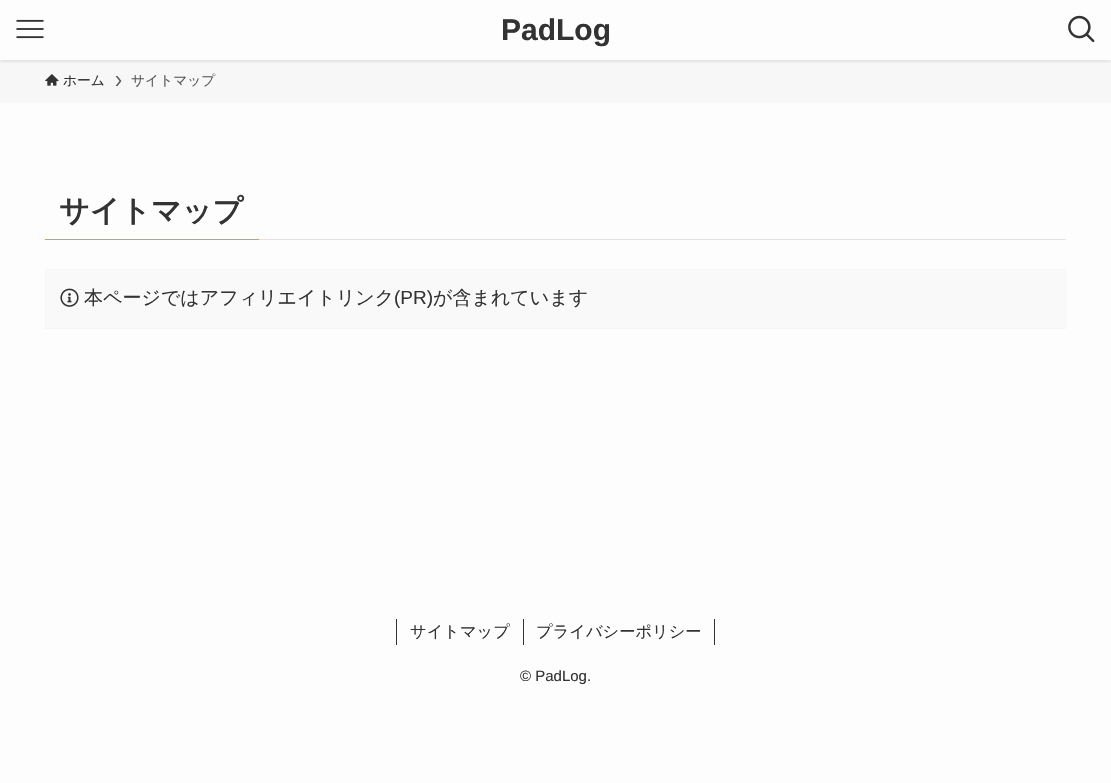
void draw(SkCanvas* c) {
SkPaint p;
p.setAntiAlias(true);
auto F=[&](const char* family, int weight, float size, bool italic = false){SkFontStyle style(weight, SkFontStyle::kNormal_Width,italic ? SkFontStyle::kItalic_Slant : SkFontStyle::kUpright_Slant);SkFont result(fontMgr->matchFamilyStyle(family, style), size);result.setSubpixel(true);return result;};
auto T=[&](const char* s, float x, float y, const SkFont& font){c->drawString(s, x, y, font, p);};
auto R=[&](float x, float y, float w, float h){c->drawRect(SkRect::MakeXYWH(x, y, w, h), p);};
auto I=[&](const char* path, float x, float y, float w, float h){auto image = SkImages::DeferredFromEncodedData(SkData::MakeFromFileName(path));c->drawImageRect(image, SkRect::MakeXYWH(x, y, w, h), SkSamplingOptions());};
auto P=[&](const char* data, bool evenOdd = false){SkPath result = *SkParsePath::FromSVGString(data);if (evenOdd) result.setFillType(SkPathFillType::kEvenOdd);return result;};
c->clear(0xfffdfdfd);
p.setColor(0xfff7f7f7);
R(0,60,1111,43);
c->save();
c->clipRect(SkRect::MakeXYWH(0,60,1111,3));
p.setColor(0x1f000000);
p.setMaskFilter(SkMaskFilter::MakeBlur(kNormal_SkBlurStyle, 2.5));
c->drawRect(SkRect::MakeXYWH(0,1,1111,60),p);
p.setMaskFilter(nullptr);
c->restore();
I("1.png",16,19,28,20);
auto f1 = F("Liberation Sans",700,30);
p.setColor(0xff333333);
T("PadLog",501,40,f1);
I("2.png",1068,15,27,28);
I("3.png",45,74,14,12);
auto f2 = F("WenQuanYi Zen Hei",500,13.75);
T("ホーム",63,85,f2);
p.setColor(0xff5a5a5a);
c->drawPath(P("M117.5 76h-2l4 5l-4 5h2l4-5z"),p);
T("サイトマップ",131,85,f2);
p.setColor(0xffe2e2e2);
R(259,239,807,1);
p.setColor(0xfff99339);
R(45,239,214,1);
auto f3 = F("WenQuanYi Zen Hei",700,30);
p.setColor(0xff333333);
T("サイトマップ",59,221,f3);
p.setColor(0xfff9f9f9);
c->drawRoundRect(SkRect::MakeXYWH(45.5,269.5,1020,59),.5,.5,p);
p.setStroke(true);
p.setStrokeWidth(1);
p.setColor(0xfff5f5f5);
c->drawRoundRect(SkRect::MakeXYWH(45.5,269.5,1020,59),.5,.5,p);
I("4.png",60,288,19,19);
auto f4 = F("WenQuanYi Zen Hei",500,19);
p.setStroke(false);
p.setColor(0xff333333);
T("本ページではアフィリエイトリンク",84,304,f4);
auto f5 = F("Liberation Sans",400,19);
T("(PR)",394,304,f5);
T("が含まれています",433,304,f4);
R(523,619,1,26);
R(396,619,1,26);
auto f6 = F("WenQuanYi Zen Hei",500,16.25);
T("サイトマップ",410,637,f6);
R(714,619,1,26);
T("プライバシーポリシー",536,637,f6);
auto f7 = F("Liberation Sans",400,15);
T("© PadLog.",520,681,f7);
}
